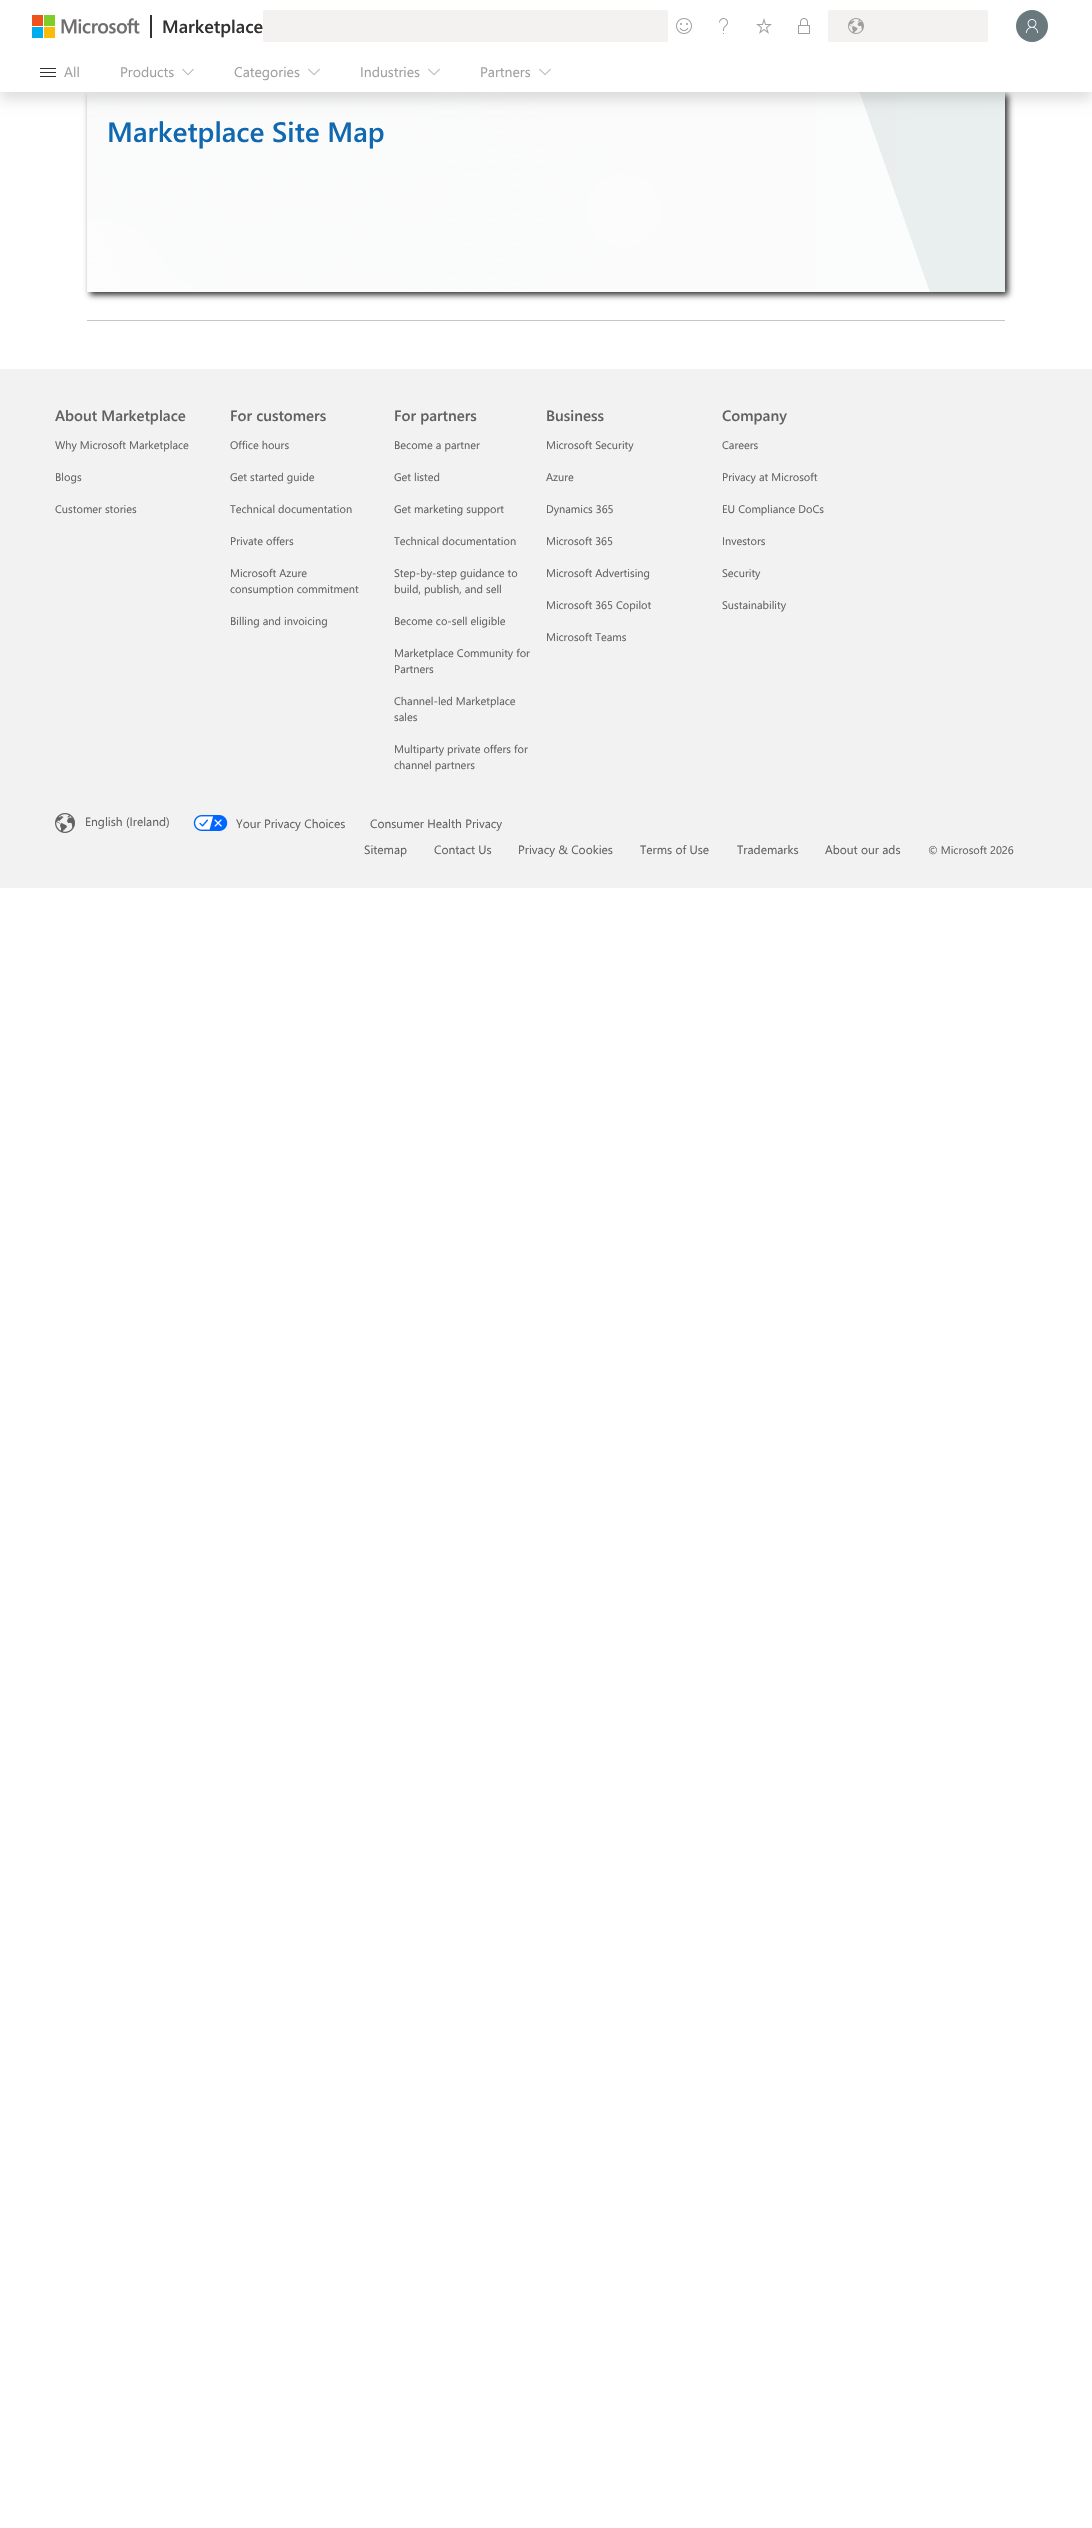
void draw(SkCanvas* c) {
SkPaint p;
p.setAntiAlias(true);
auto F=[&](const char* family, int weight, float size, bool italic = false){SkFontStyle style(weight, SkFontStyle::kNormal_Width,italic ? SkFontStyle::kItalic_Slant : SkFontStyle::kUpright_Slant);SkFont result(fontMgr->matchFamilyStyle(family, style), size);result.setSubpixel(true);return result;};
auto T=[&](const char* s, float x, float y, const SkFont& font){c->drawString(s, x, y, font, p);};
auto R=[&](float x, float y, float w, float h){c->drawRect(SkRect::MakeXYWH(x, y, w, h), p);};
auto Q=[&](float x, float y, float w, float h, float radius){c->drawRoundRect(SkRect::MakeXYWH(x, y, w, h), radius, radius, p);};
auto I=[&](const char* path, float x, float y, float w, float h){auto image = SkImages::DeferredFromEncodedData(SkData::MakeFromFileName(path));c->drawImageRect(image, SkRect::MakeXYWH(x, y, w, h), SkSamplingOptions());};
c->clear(0xffffffff);
p.setColor(0xff323130);
p.setMaskFilter(SkMaskFilter::MakeBlur(kNormal_SkBlurStyle, 3));
c->drawRect(SkRect::MakeXYWH(90,95,918,200),p);
p.setMaskFilter(nullptr);
I("10.png",87,92,918,200);
p.setColor(0x1f000000);
p.setMaskFilter(SkMaskFilter::MakeBlur(kNormal_SkBlurStyle, 6));
c->drawRect(SkRect::MakeXYWH(0,8,1092,92),p);
p.setMaskFilter(nullptr);
p.setColor(0xffffffff);
R(0,0,1092,92);
I("1.png",32,15,108,23);
p.setColor(0xff323130);
R(150,15,2,23);
auto f1 = F("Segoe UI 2",600,18);
T("Marketplace",162,33,f1);
p.setColor(0xfff3f2f1);
R(263,10,405,32);
p.setColor(0xfffcfbfb);
R(263,10,1,1);
R(667,10,1,1);
R(263,41,1,1);
R(667,41,1,1);
I("2.png",676,18,16,16);
I("3.png",719,18,9,16);
I("4.png",756,18,16,16);
I("5.png",798,18,12,16);
p.setColor(0xfff3f2f1);
Q(828,10,160,32,2);
I("6.png",848,18,16,16);
p.setColor(0xfffcfbfb);
R(872,16,1,1);
R(971,16,1,1);
R(872,35,1,1);
R(971,35,1,1);
p.setColor(0xff69797e);
c->drawCircle(1032,26,16,p);
I("7.png",1025,19,14,14);
I("8.png",40,68,16,9);
auto f2 = F("Segoe UI 2",400,14);
p.setColor(0xffa19f9d);
T("All",64,77,f2);
T("Products",120,77,f2);
I("9.png",182,68,12,7);
T("Categories",234,77,f2);
I("9.png",308,68,12,7);
T("Industries",360,77,f2);
I("9.png",428,68,12,7);
T("Partners",480,77,f2);
I("9.png",539,68,12,7);
auto f3 = F("Segoe UI 2",600,28);
p.setColor(0xff1068b0);
T("Marketplace Site Map",107,142,f3);
p.setColor(0xffc8c6c4);
R(87,320,918,1);
p.setColor(0xfff2f2f2);
R(0,369,1092,519);
auto f4 = F("Segoe UI",600,15);
p.setColor(0xff616161);
T("About Marketplace",55,421,f4);
auto f5 = F("Segoe UI",400,11);
T("Why Microsoft Marketplace",55,449,f5);
T("Blogs",55,481,f5);
T("Customer stories",55,513,f5);
T("For customers",230,421,f4);
T("Office hours",230,449,f5);
T("Get started guide",230,481,f5);
T("Technical documentation",230,513,f5);
T("Private offers",230,545,f5);
T("Microsoft Azure",230,577,f5);
T("consumption commitment",230,593,f5);
T("Billing and invoicing",230,625,f5);
T("For partners",394,421,f4);
T("Become a partner",394,449,f5);
T("Get listed",394,481,f5);
T("Get marketing support",394,513,f5);
T("Technical documentation",394,545,f5);
T("Step-by-step guidance to",394,577,f5);
T("build, publish, and sell",394,593,f5);
T("Become co-sell eligible",394,625,f5);
T("Marketplace Community for",394,657,f5);
T("Partners",394,673,f5);
T("Channel-led Marketplace",394,705,f5);
T("sales",394,721,f5);
T("Multiparty private offers for",394,753,f5);
T("channel partners",394,769,f5);
T("Business",546,421,f4);
T("Microsoft Security",546,449,f5);
T("Azure",546,481,f5);
T("Dynamics 365",546,513,f5);
T("Microsoft 365",546,545,f5);
T("Microsoft Advertising",546,577,f5);
T("Microsoft 365 Copilot",546,609,f5);
T("Microsoft Teams",546,641,f5);
T("Company",722,421,f4);
T("Careers",722,449,f5);
T("Privacy at Microsoft",722,481,f5);
T("EU Compliance DoCs",722,513,f5);
T("Investors",722,545,f5);
T("Security",722,577,f5);
T("Sustainability",722,609,f5);
I("11.png",55,813,20,20);
auto f6 = F("Segoe UI",400,12);
T("English (Ireland)",85,826,f6);
I("12.png",193,815,35,16);
T("Your Privacy Choices",236,828,f6);
T("Consumer Health Privacy",370,828,f6);
T("Sitemap",364,854,f6);
T("Contact Us",434,854,f6);
T("Privacy & Cookies",518,854,f6);
T("Terms of Use",640,854,f6);
T("Trademarks",737,854,f6);
T("About our ads",825,854,f6);
T("© Microsoft 2026",928,854,f5);
}
